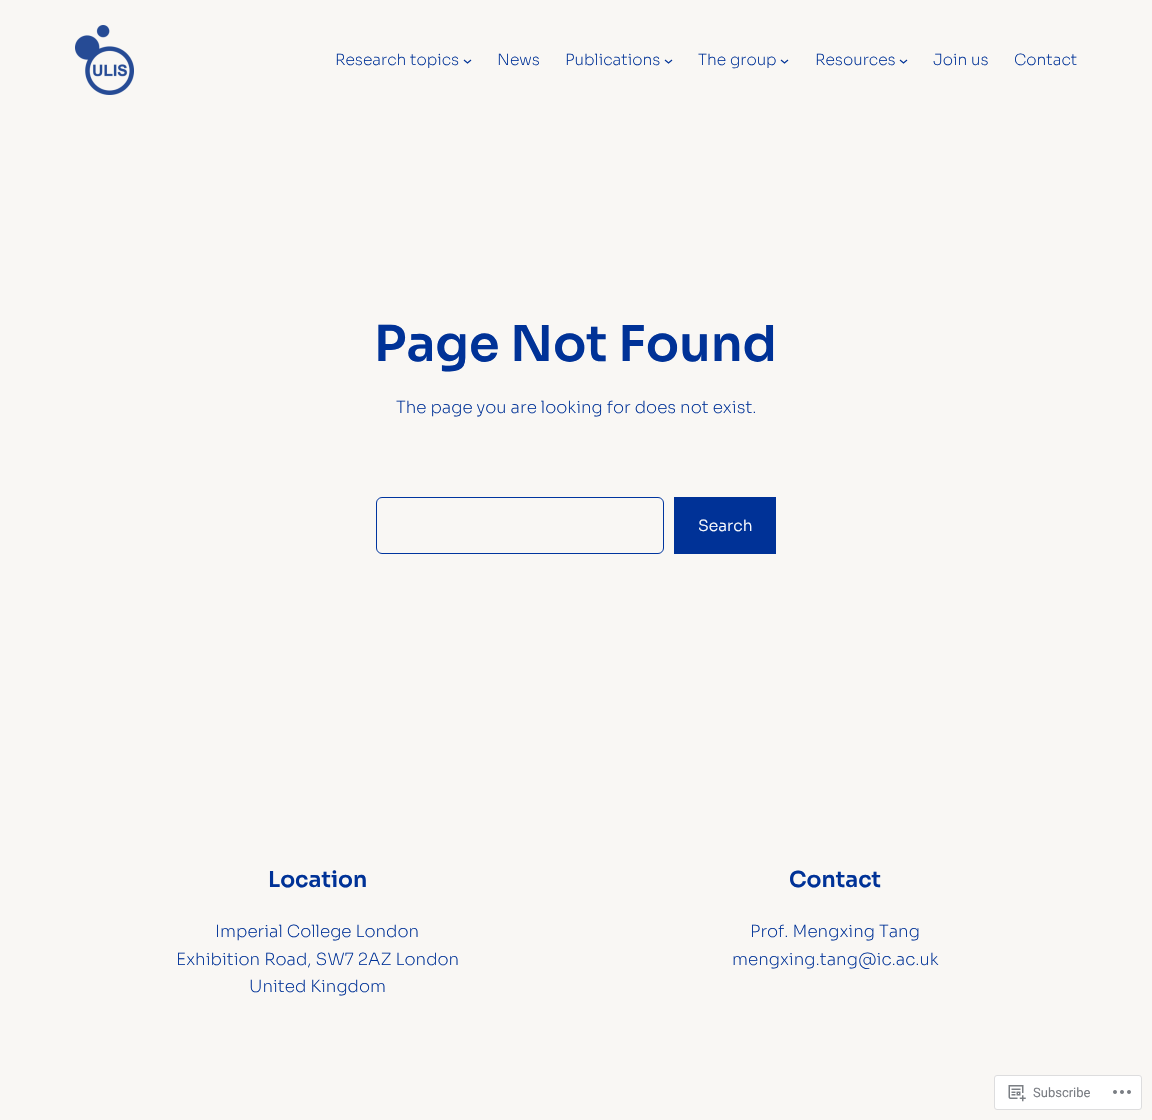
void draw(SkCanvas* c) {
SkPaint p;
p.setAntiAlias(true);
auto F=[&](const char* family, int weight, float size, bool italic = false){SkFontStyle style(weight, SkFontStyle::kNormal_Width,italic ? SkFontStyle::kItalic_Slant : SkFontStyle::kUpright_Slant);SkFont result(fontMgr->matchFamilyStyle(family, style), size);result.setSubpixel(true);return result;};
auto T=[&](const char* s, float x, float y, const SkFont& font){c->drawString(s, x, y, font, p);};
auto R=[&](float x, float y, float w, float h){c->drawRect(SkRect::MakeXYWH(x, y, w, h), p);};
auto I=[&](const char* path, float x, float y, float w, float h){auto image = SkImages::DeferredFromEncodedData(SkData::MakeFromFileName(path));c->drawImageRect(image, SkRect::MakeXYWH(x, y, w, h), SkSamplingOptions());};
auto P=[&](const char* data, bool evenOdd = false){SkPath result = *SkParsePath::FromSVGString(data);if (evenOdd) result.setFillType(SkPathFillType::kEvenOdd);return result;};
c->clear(0xfff9f7f4);
I("1.png",75,25,59,70);
auto f1 = F("Sora",200,15.5);
p.setColor(0xff003297);
T("Research topics",335,65,f1);
p.setStroke(true);
p.setStrokeWidth(1.2);
c->drawPath(P("M464 60l3.5 3l3.5-3"),p);
p.setStroke(false);
T("News",497,65,f1);
T("Publications",565,65,f1);
p.setStroke(true);
c->drawPath(P("M665 60l3.5 3l3.5-3"),p);
p.setStroke(false);
T("The group",698,65,f1);
p.setStroke(true);
c->drawPath(P("M781 60l3.5 3l3.5-3"),p);
p.setStroke(false);
T("Resources",815,65,f1);
p.setStroke(true);
c->drawPath(P("M900 60l3.5 3l3.5-3"),p);
p.setStroke(false);
T("Join us",933,65,f1);
T("Contact",1014,65,f1);
auto f2 = F("Sora",600,49.25);
T("Page Not Found",374,361,f2);
auto f3 = F("Sora",200,16.75);
T("The page you are looking for does not exist.",396,413,f3);
p.setStroke(true);
p.setStrokeWidth(1);
p.setColor(0xff00359f);
c->drawRoundRect(SkRect::MakeXYWH(376.5,497.5,287,56),5.5,5.5,p);
p.setStroke(false);
p.setColor(0xff003297);
R(674,497,102,57);
auto f4 = F("Sora",300,15.5);
p.setColor(0xffffffff);
T("Search",698,531,f4);
auto f5 = F("Sora",600,22);
p.setColor(0xff003297);
T("Location",268,887,f5);
T("Imperial College London",215,937,f3);
T("Exhibition Road, SW7 2AZ London",176,965,f3);
T("United Kingdom",249,992,f3);
T("Contact",789,887,f5);
T("Prof. Mengxing Tang",750,937,f3);
T("mengxing.tang@ic.ac.uk",732,965,f3);
p.setColor(0xffffffff);
c->drawRoundRect(SkRect::MakeXYWH(994.5,1075.5,147,34),2.5,2.5,p);
p.setStroke(true);
p.setColor(0xffddddde);
c->drawRoundRect(SkRect::MakeXYWH(994.5,1075.5,147,34),2.5,2.5,p);
I("2.png",1008,1085,18,17);
auto f6 = F("Roboto",400,13);
p.setStroke(false);
p.setColor(0xff7b7e84);
T("Subscribe",1033,1097,f6);
I("3.png",1113,1090,18,4);
}
